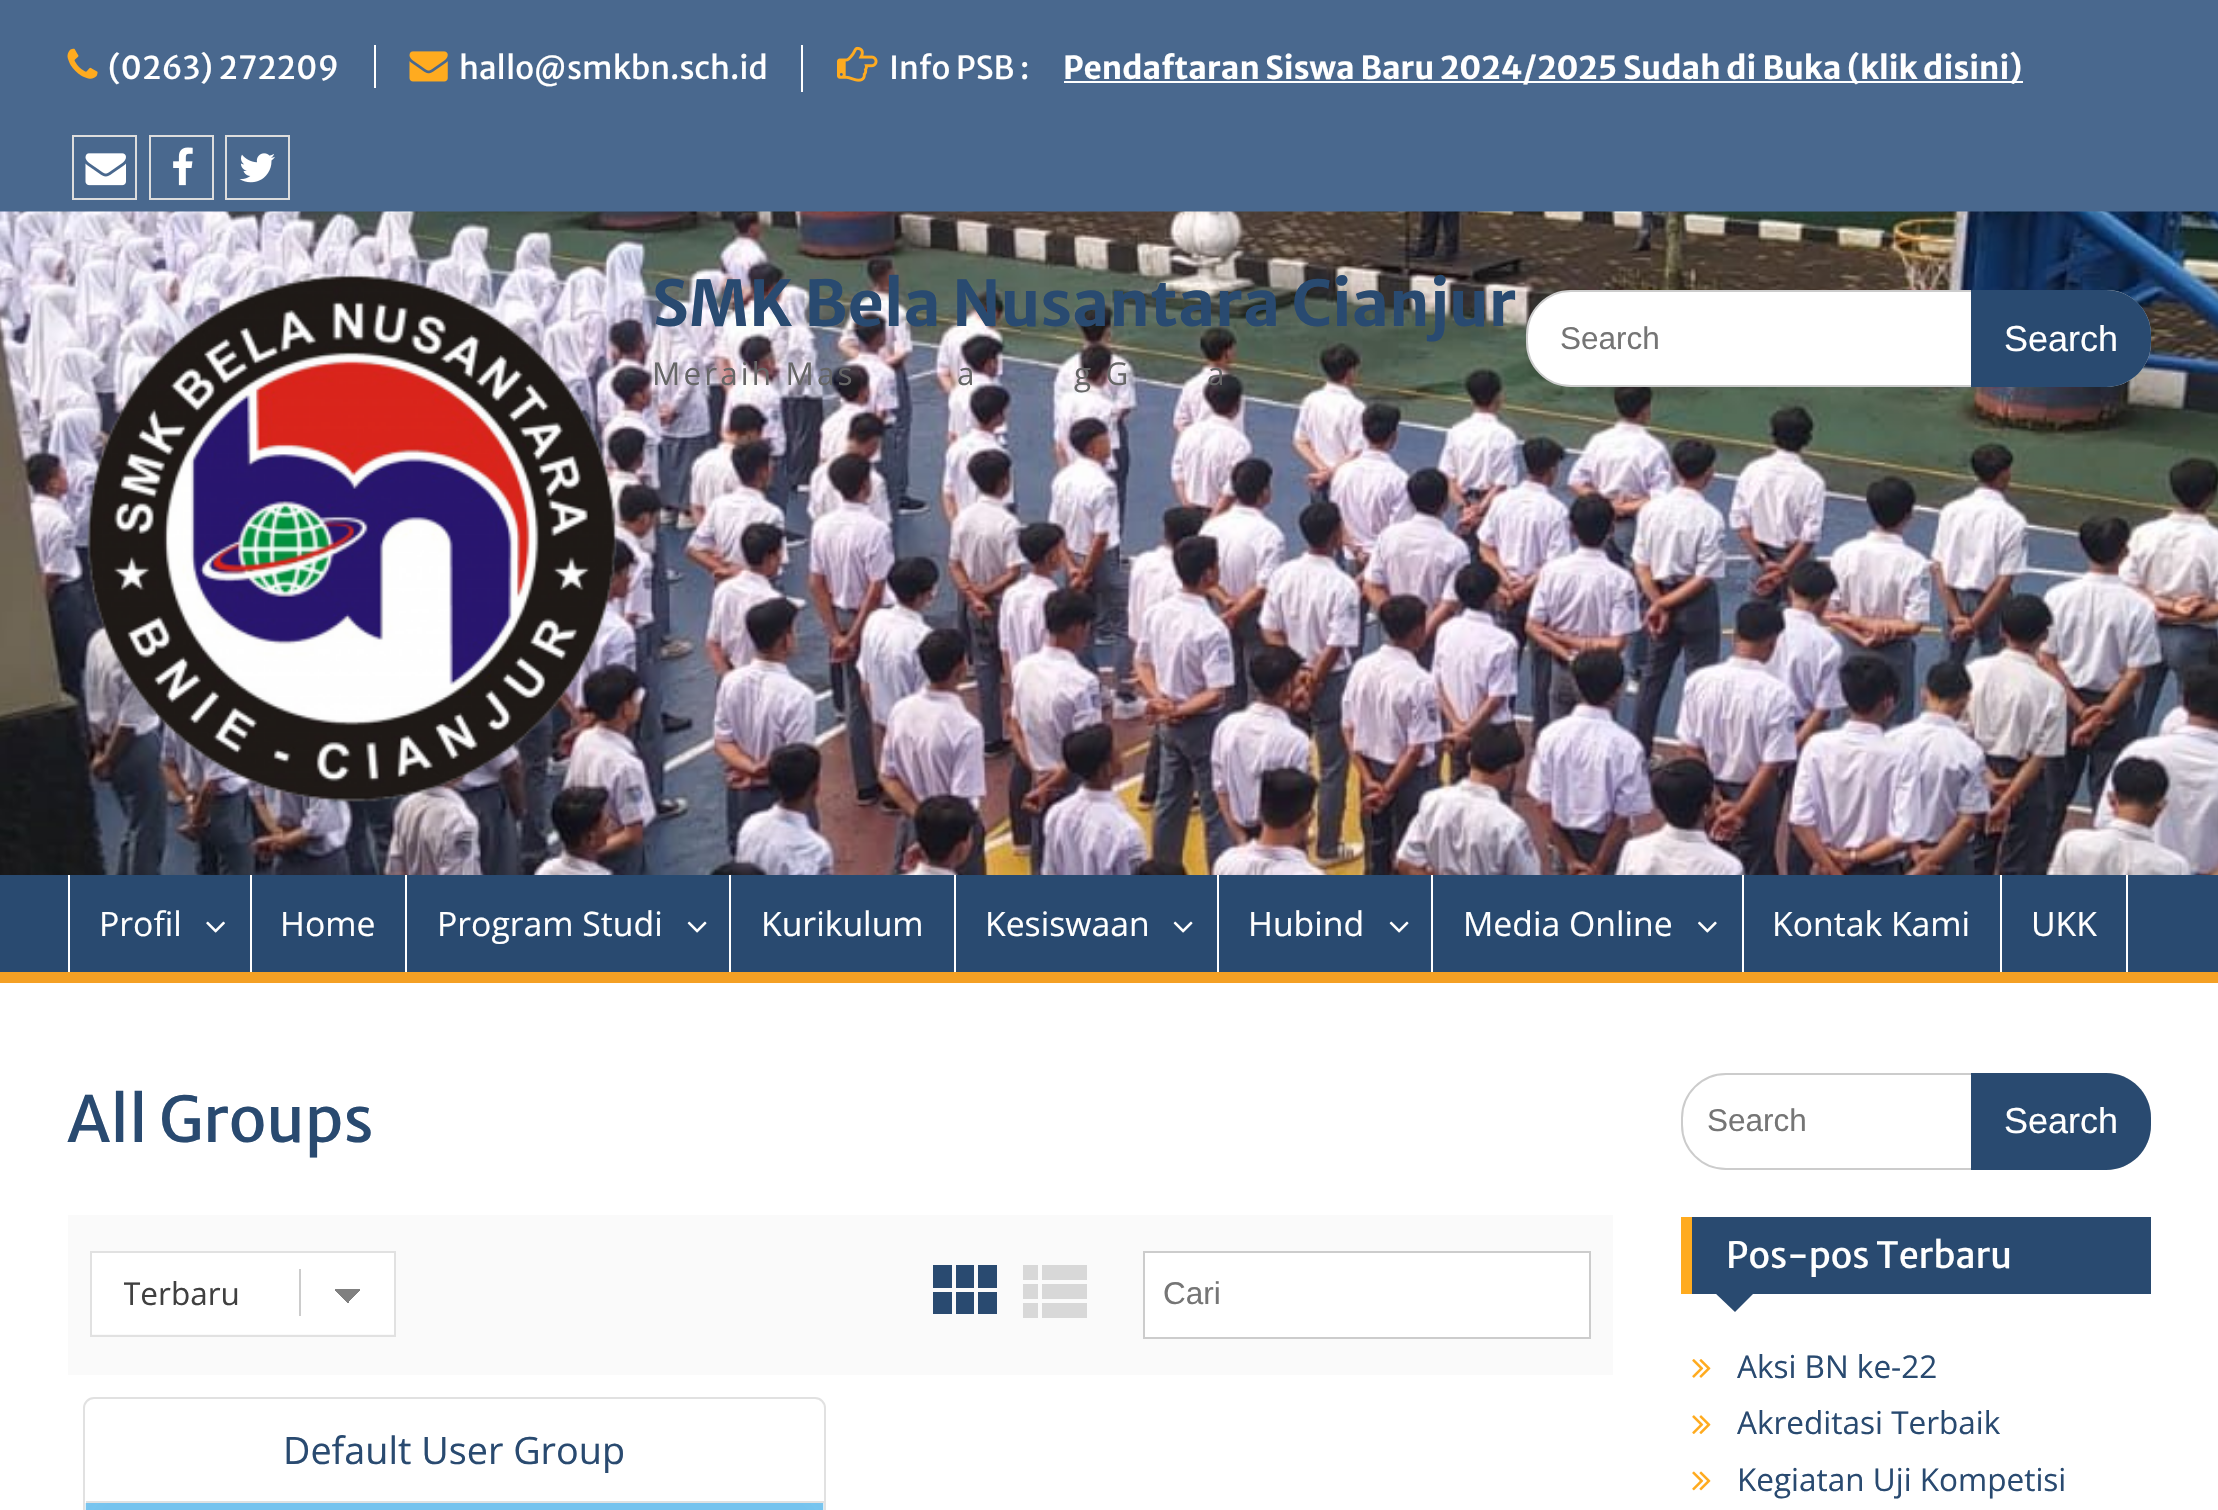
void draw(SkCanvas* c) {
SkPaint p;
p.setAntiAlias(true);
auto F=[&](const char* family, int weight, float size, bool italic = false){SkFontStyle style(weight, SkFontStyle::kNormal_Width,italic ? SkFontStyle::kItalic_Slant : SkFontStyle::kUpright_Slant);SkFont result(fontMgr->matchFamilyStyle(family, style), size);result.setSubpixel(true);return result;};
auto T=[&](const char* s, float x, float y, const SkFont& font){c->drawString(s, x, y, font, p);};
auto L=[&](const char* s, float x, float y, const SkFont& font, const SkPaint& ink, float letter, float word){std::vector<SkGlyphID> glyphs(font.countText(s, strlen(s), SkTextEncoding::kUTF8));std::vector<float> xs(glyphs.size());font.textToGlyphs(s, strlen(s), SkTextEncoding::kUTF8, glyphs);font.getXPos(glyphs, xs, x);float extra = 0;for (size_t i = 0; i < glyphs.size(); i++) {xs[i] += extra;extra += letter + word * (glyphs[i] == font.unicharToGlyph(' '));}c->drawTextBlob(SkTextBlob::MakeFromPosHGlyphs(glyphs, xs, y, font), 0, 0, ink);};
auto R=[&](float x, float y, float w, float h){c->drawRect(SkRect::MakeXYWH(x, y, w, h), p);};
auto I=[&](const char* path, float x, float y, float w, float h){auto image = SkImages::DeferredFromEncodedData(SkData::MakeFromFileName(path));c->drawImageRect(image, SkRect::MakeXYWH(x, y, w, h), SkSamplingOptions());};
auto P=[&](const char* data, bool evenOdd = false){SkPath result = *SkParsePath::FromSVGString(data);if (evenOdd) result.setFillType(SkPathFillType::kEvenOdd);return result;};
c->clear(0xffffffff);
p.setColor(0xff49688e);
R(0,0,2218,212);
I("1.png",67,48,31,31);
auto f1 = F("Merriweather Sans",400,31.5);
p.setColor(0xffffffff);
T("(0263) 272209",108,79,f1);
R(374,45,2,43);
I("2.png",409,51,39,31);
T("hallo@smkbn.sch.id",459,79,f1);
R(801,45,2,47);
I("3.png",837,46,41,36);
T("Info PSB :",889,79,f1);
R(1064,81,959,2);
auto f2 = F("Merriweather Sans",700,31.5);
T("Pendaftaran Siswa Baru 2024/2025 Sudah di Buka (klik disini)",1063,79,f2);
p.setStroke(true);
p.setStrokeWidth(2);
p.setColor(0xffdddddd);
c->drawRect(SkRect::MakeXYWH(73,136,63,63),p);
I("4.png",85,153,41,33);
c->drawRect(SkRect::MakeXYWH(150,136,63,63),p);
I("5.png",173,147,20,39);
c->drawRect(SkRect::MakeXYWH(226,136,63,63),p);
I("6.png",239,153,36,30);
I("7.png",0,211,2218,664);
I("8.png",87,274,530,528);
auto f3 = F("Merriweather Sans",700,63);
p.setStroke(false);
p.setColor(0xff294a70);
T("SMK Bela Nusantara Cianjur",652,326,f3);
auto f4 = F("Open Sans",400,31.5);
p.setColor(0xff666666);
L("Meraih Mas",652,385,f4,p,3.1,0);
L("a",957,385,f4,p,3.1,0);
L("g G",1074,385,f4,p,3.1,0);
L("a",1207,385,f4,p,3.1,0);
p.setColor(0xffffffff);
c->drawRoundRect(SkRect::MakeXYWH(1527,291,623,95),44,44,p);
p.setStroke(true);
p.setColor(0xffcccccc);
c->drawRoundRect(SkRect::MakeXYWH(1527,291,623,95),44,44,p);
auto f5 = F("Liberation Sans",400,31.5);
p.setStroke(false);
p.setColor(0xff757575);
T("Search",1560,349,f5);
p.setColor(0xff294a70);
c->drawPath(P("M1971 290h135c25 0 45 20 45 45v7c0 25-20 45-45 45h-135z"),p);
auto f6 = F("Liberation Sans",400,36);
p.setColor(0xffffffff);
T("Search",2004,351,f6);
p.setColor(0xff294a70);
R(0,875,2218,97);
p.setColor(0xfff4a024);
R(0,972,2218,11);
p.setColor(0xffffffff);
R(250,875,2,97);
R(68,875,2,97);
auto f7 = F("Open Sans",400,33.75);
T("Profil",99,936,f7);
I("9.png",206,921,19,12);
R(405,875,2,97);
T("Home",280,936,f7);
R(729,875,2,97);
T("Program Studi",437,936,f7);
I("10.png",687,921,20,12);
R(954,875,2,97);
T("Kurikulum",761,936,f7);
R(1217,875,2,97);
T("Kesiswaan",985,936,f7);
I("10.png",1173,921,20,12);
R(1431,875,2,97);
T("Hubind",1248,936,f7);
I("10.png",1389,921,20,12);
R(1742,875,2,97);
T("Media Online",1463,936,f7);
I("11.png",1698,921,19,12);
R(2000,875,2,97);
T("Kontak Kami",1772,936,f7);
R(2126,875,2,97);
T("UKK",2031,936,f7);
auto f8 = F("Merriweather Sans",400,63);
p.setColor(0xff294a70);
T("All Groups",67,1142,f8);
p.setColor(0xfffafafa);
R(68,1215,1545,160);
p.setStroke(true);
p.setColor(0xffe1e1e1);
c->drawRect(SkRect::MakeXYWH(91,1252,304,84),p);
p.setStroke(false);
p.setColor(0xffffffff);
R(92,1253,302,81);
p.setColor(0xffcccccc);
R(299,1269,2,47);
{
const SkColor colors[] = {0xff808080,0xffffffff};
const float stops[] = {.5,.5};
const SkPoint ends[] = {{348,1290}, {361,1302}};
p.setShader(SkGradientShader::MakeLinear(ends, colors, stops, 2, SkTileMode::kClamp));
p.setAlpha(255);
}
R(349,1289,11,12);
{
const SkColor colors[] = {0xffffffff,0xff808080};
const float stops[] = {.5,.5};
const SkPoint ends[] = {{334,1303}, {348,1289}};
p.setShader(SkGradientShader::MakeLinear(ends, colors, stops, 2, SkTileMode::kClamp));
p.setAlpha(255);
}
R(335,1289,14,14);
c->save();
c->clipRect(SkRect::MakeXYWH(124,1269,160,47));
p.setShader(nullptr);
p.setColor(0xff404040);
T("Terbaru",123,1305,f4);
c->restore();
p.setColor(0xff294a70);
c->drawPath(P("M933 1288h19v-23h-19zm0 26h19v-22h-19zm23 0h18v-22h-18zm22 0h19v-22h-19zm-22-26h18v-23h-18zm22-23v23h19v-23z"),p);
p.setColor(0xffd8d8d8);
c->drawPath(P("M1023 1299h15v-15h-15zm0 19h15v-15h-15zm0-38h15v-15h-15zm19 19h45v-15h-45zm0 19h45v-15h-45zm0-53v15h45v-15z"),p);
p.setColor(0xffffffff);
c->drawRect(SkRect::MakeXYWH(1144,1252,446,86),p);
p.setStroke(true);
p.setColor(0xffcccccc);
c->drawRect(SkRect::MakeXYWH(1144,1252,446,86),p);
p.setStroke(false);
p.setColor(0xff757575);
T("Cari",1163,1304,f5);
p.setStroke(true);
p.setColor(0xffe1e1e1);
c->drawRoundRect(SkRect::MakeXYWH(84,1398,741,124),10,10,p);
p.setStroke(false);
R(86,1501,738,2);
auto f9 = F("Open Sans",400,37.75);
p.setColor(0xff294a70);
T("Default User Group",283,1464,f9);
p.setColor(0xfffafafa);
R(86,1503,738,7);
I("12.png",85,1503,739,7);
p.setStroke(true);
p.setColor(0xffcccccc);
c->drawRoundRect(SkRect::MakeXYWH(1682,1074,468,95),44,44,p);
p.setStroke(false);
p.setColor(0xff757575);
T("Search",1707,1131,f5);
p.setColor(0xff294a70);
c->drawPath(P("M1971 1073h135c25 0 45 20 45 45v7c0 25-20 45-45 45h-135z"),p);
p.setColor(0xffffffff);
T("Search",2004,1133,f6);
p.setColor(0xff294a70);
R(1692,1217,459,77);
p.setColor(0xffffab1f);
R(1681,1217,11,77);
auto f10 = F("Merriweather Sans",400,36);
p.setColor(0xffffffff);
T("Pos-pos Terbaru",1726,1268,f10);
p.setColor(0xff294a70);
c->drawPath(P("M1714 1292h41l-20 20z"),p);
I("13.png",1692,1359,19,19);
T("Aksi BN ke-22",1737,1378,f4);
I("14.png",1692,1415,19,19);
T("Akreditasi Terbaik",1737,1434,f4);
I("15.png",1692,1471,19,20);
T("Kegiatan Uji Kompetisi",1737,1491,f4);
}
